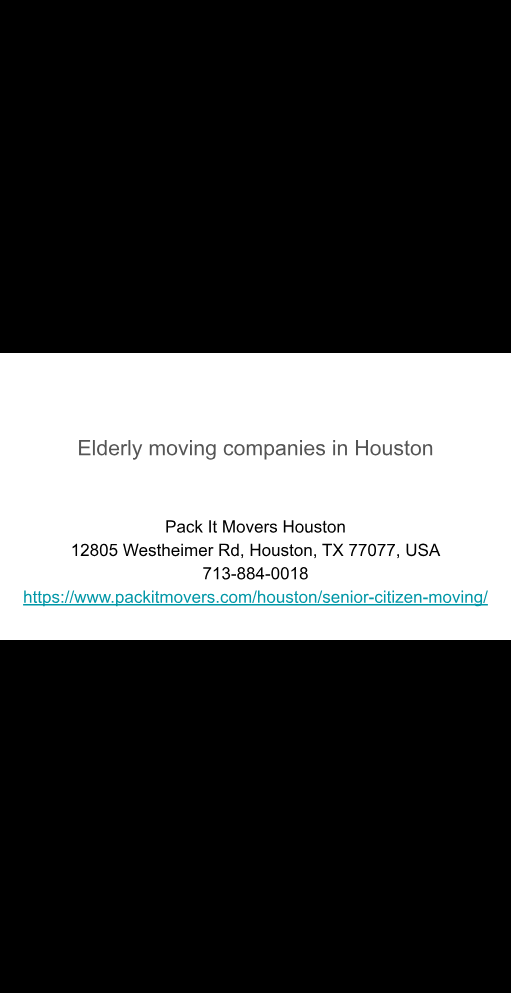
void draw(SkCanvas* c) {
SkPaint p;
p.setAntiAlias(true);
auto I=[&](const char* path, float x, float y, float w, float h){auto image = SkImages::DeferredFromEncodedData(SkData::MakeFromFileName(path));c->drawImageRect(image, SkRect::MakeXYWH(x, y, w, h), SkSamplingOptions());};
c->clear(0xff000000);
I("1.png",0,353,511,287);
}
